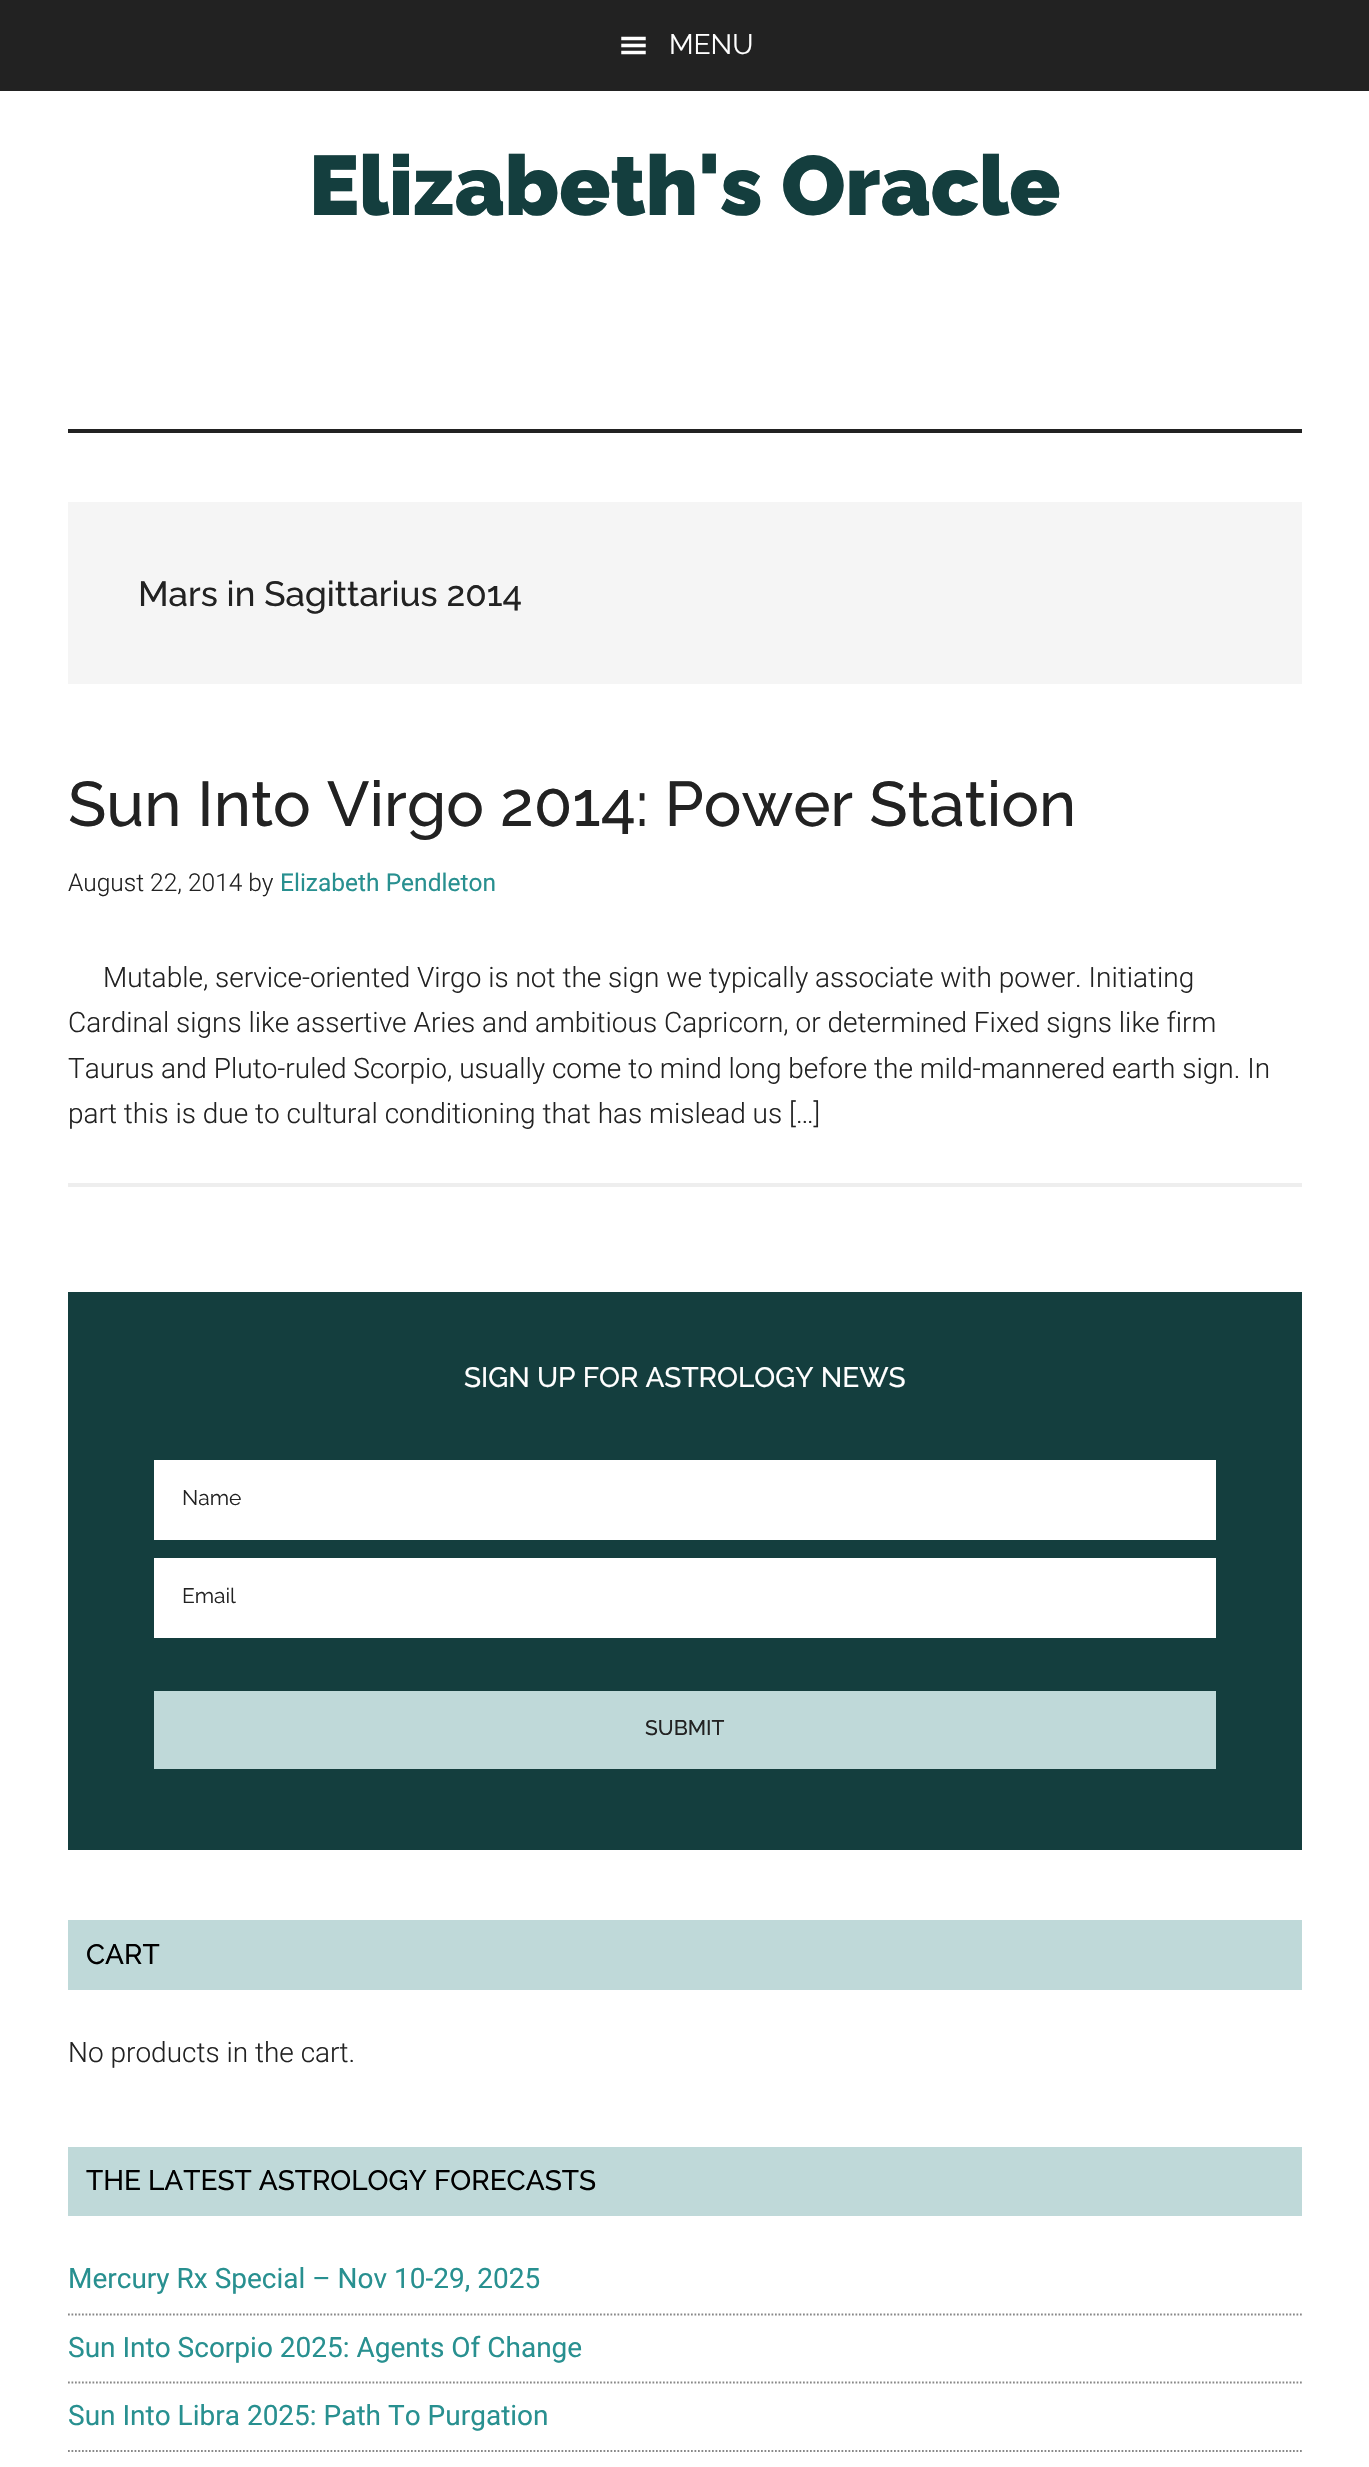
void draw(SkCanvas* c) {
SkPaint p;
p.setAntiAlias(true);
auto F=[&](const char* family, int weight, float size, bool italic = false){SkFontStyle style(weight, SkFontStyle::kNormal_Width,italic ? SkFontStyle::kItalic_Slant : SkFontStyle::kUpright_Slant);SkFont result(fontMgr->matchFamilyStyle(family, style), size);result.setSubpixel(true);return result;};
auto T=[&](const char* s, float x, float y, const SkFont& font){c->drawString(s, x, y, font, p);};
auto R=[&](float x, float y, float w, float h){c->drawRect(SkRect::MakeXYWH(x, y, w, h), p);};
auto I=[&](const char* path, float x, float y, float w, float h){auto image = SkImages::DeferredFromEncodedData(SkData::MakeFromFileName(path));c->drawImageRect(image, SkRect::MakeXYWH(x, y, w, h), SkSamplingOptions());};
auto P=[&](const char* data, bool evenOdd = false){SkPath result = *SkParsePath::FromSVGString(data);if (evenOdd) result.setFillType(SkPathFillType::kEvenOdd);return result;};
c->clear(0xffffffff);
p.setColor(0xff222222);
R(0,0,1369,91);
I("1.png",621,36,25,19);
auto f1 = F("Raleway",400,28);
p.setColor(0xffffffff);
T("MENU",669,54,f1);
p.setColor(0xff222222);
R(68,429,1234,4);
auto f2 = F("Raleway",900,84);
p.setColor(0xff143e3e);
T("Elizabeth's Oracle",309,215,f2);
p.setColor(0xfff5f5f5);
R(68,502,1234,182);
auto f3 = F("Raleway",500,35);
p.setColor(0xff222222);
T("Mars in Sagittarius 2014",138,606,f3);
p.setColor(0xffeeeeee);
R(68,1183,1234,4);
auto f4 = F("Raleway",500,63);
p.setColor(0xff222222);
T("Sun Into Virgo 2014: Power Station",68,826,f4);
auto f5 = F("Roboto",300,24.5);
T("August 22, 2014 by",68,891,f5);
auto f6 = F("Roboto",400,24.5);
p.setColor(0xff289090);
T("Elizabeth Pendleton",280,891,f6);
auto f7 = F("Roboto",300,28);
p.setColor(0xff222222);
T("Mutable, service-oriented Virgo is not the sign we typically associate with power. Initiating",103,987,f7);
T("Cardinal signs like assertive Aries and ambitious Capricorn, or determined Fixed signs like firm",68,1032,f7);
T("Taurus and Pluto-ruled Scorpio, usually come to mind long before the mild-mannered earth sign. In",68,1078,f7);
T("part this is due to cultural conditioning that has mislead us […]",68,1123,f7);
p.setColor(0xff143e3e);
R(68,1292,1234,558);
auto f8 = F("Raleway",500,28);
p.setColor(0xffffffff);
T("SIGN UP FOR ASTROLOGY NEWS",464,1387,f8);
R(154,1460,1062,80);
auto f9 = F("Raleway",400,21);
p.setColor(0xff222222);
T("Name",182,1505,f9);
p.setColor(0xffffffff);
R(154,1558,1062,80);
p.setColor(0xff222222);
T("Email",182,1603,f9);
p.setColor(0xffbfd9d9);
R(154,1691,1062,78);
auto f10 = F("Raleway",500,21);
p.setColor(0xff222222);
T("SUBMIT",645,1735,f10);
p.setColor(0xffbfd9d9);
R(68,1920,1234,70);
p.setColor(0xff000000);
T("CART",86,1964,f8);
p.setColor(0xff222222);
T("No products in the cart.",68,2062,f7);
p.setColor(0xffbfd9d9);
R(68,2147,1234,69);
p.setColor(0xff000000);
T("THE LATEST ASTROLOGY FORECASTS",86,2190,f8);
p.setStroke(true);
p.setStrokeWidth(1.8);
p.setColor(0xff888888);
p.setPathEffect(SkDashPathEffect::Make({{1.75f,1.75f}}, 0));
c->drawPath(P("M68 2314.5h1234"),p);
p.setPathEffect(nullptr);
auto f11 = F("Roboto",400,28);
p.setStroke(false);
p.setColor(0xff289090);
T("Mercury Rx Special – Nov 10-29, 2025",68,2288,f11);
p.setStroke(true);
p.setColor(0xff888888);
p.setPathEffect(SkDashPathEffect::Make({{1.75f,1.75f}}, 0));
c->drawPath(P("M68 2382.5h1234"),p);
p.setPathEffect(nullptr);
p.setStroke(false);
p.setColor(0xff289090);
T("Sun Into Scorpio 2025: Agents Of Change",68,2357,f11);
p.setStroke(true);
p.setColor(0xff888888);
p.setPathEffect(SkDashPathEffect::Make({{1.75f,1.75f}}, 0));
c->drawPath(P("M68 2451h1234"),p);
p.setPathEffect(nullptr);
p.setStroke(false);
p.setColor(0xff289090);
T("Sun Into Libra 2025: Path To Purgation",68,2425,f11);
}
